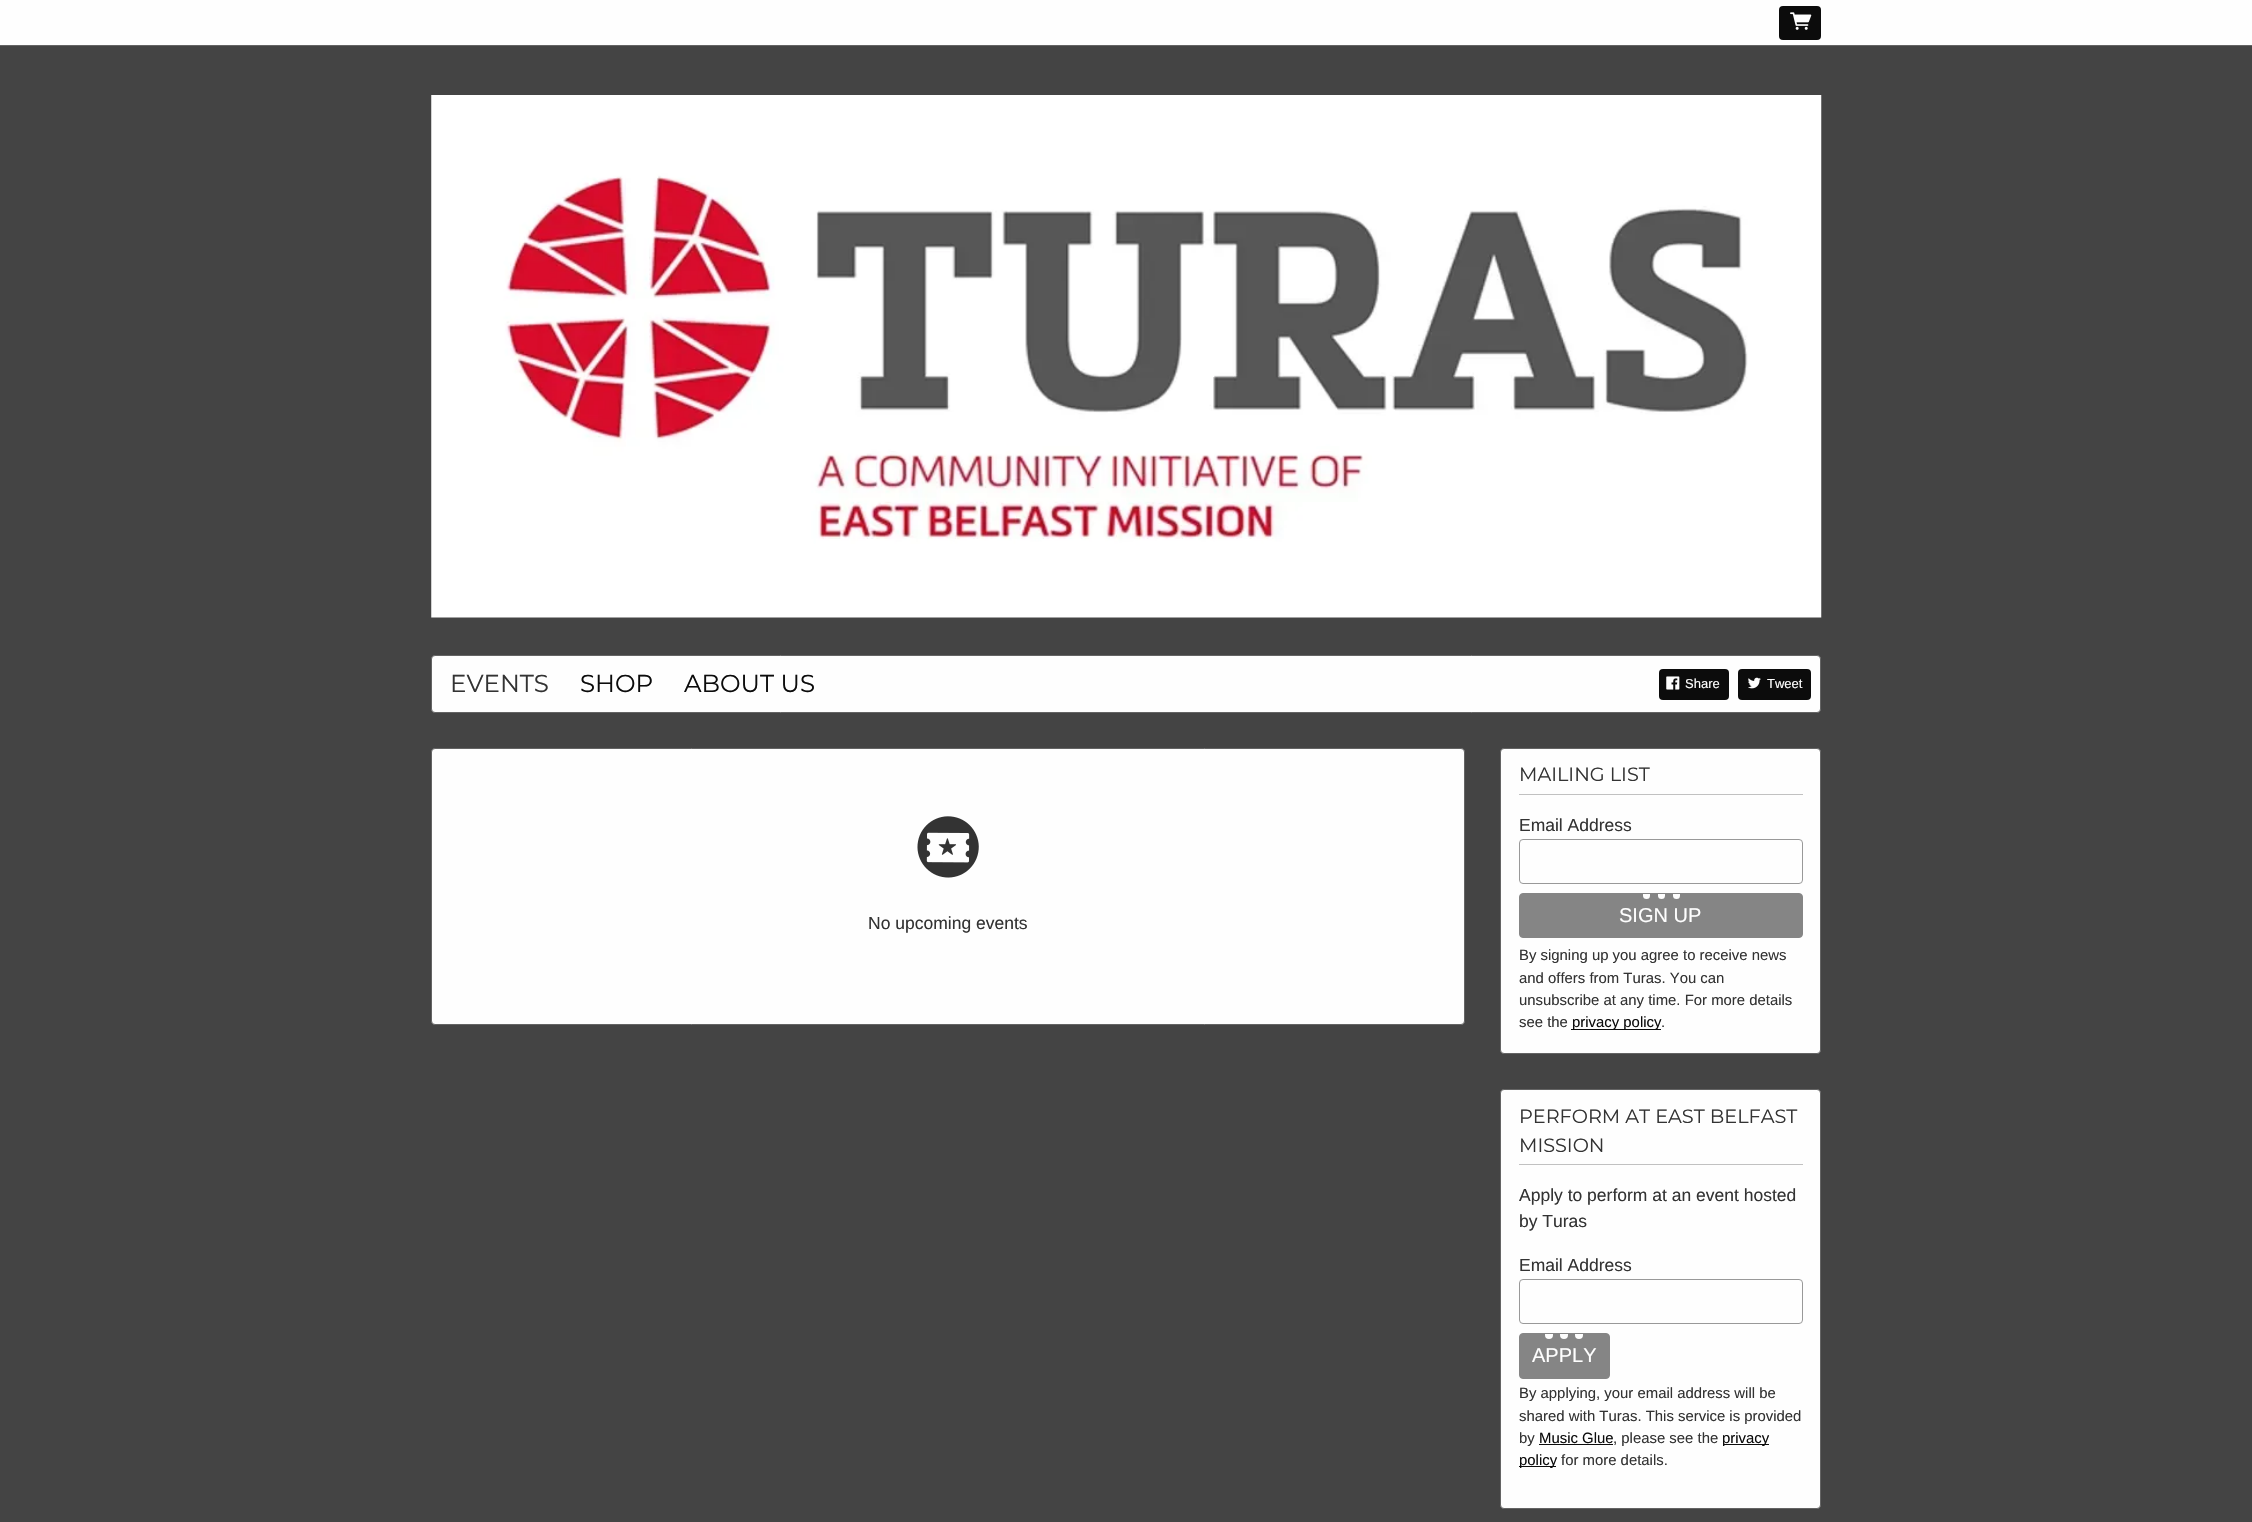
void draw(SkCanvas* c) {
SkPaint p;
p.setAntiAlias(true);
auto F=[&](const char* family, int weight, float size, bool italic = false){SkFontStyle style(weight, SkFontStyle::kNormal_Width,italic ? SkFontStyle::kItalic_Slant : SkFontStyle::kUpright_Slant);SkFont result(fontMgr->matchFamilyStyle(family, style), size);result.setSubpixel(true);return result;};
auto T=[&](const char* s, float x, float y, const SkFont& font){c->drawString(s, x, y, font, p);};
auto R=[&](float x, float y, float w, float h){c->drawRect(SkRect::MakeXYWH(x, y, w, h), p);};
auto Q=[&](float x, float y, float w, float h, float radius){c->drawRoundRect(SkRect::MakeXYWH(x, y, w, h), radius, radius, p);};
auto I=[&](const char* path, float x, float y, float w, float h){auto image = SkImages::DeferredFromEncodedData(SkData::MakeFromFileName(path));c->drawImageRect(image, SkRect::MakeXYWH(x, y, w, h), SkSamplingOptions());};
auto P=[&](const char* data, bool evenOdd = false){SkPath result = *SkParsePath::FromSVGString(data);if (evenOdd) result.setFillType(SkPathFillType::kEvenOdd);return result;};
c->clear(0xff444444);
p.setColor(0xfffefefe);
R(0,0,2252,45);
p.setColor(0xff646464);
R(0,45,2252,1);
p.setColor(0xff0c0c0c);
Q(1779,6,42,34,4);
I("1.png",1790,12,22,18);
I("2.png",431,95,1391,523);
p.setColor(0xfffefefe);
c->drawRoundRect(SkRect::MakeXYWH(431.5,655.5,1389,57),3.5,3.5,p);
p.setStroke(true);
p.setStrokeWidth(1);
p.setColor(0xff646464);
c->drawRoundRect(SkRect::MakeXYWH(431.5,655.5,1389,57),3.5,3.5,p);
auto f1 = F("Montserrat",100,24.5);
p.setStroke(false);
p.setColor(0xff333333);
T("EVENTS",450,692,f1);
p.setColor(0xff0c0c0c);
T("SHOP",580,692,f1);
T("ABOUT US",684,692,f1);
Q(1659,669,70,31,4);
I("3.png",1666,676,14,14);
auto f2 = F("Liberation Sans",400,13);
p.setColor(0xfffefefe);
T("Share",1685,688,f2);
p.setColor(0xff0c0c0c);
Q(1738,669,73,31,4);
I("4.png",1748,677,13,12);
p.setColor(0xfffefefe);
T("Tweet",1767,688,f2);
c->drawRoundRect(SkRect::MakeXYWH(431.5,748.5,1033,276),3.5,3.5,p);
p.setStroke(true);
p.setColor(0xff646464);
c->drawRoundRect(SkRect::MakeXYWH(431.5,748.5,1033,276),3.5,3.5,p);
I("5.png",917,816,62,62);
auto f3 = F("Liberation Sans",400,17.5);
p.setStroke(false);
p.setColor(0xff333333);
T("No upcoming events",868,929,f3);
p.setColor(0xfffefefe);
c->drawRoundRect(SkRect::MakeXYWH(1500.5,748.5,320,305),3.5,3.5,p);
p.setStroke(true);
p.setColor(0xff646464);
c->drawRoundRect(SkRect::MakeXYWH(1500.5,748.5,320,305),3.5,3.5,p);
p.setStroke(false);
p.setColor(0xffc1c1c1);
R(1519,794,284,1);
auto f4 = F("Montserrat",100,19.25);
p.setColor(0xff333333);
T("MAILING LIST",1519,781,f4);
T("Email Address",1519,831,f3);
p.setStroke(true);
p.setColor(0xff999999);
c->drawRoundRect(SkRect::MakeXYWH(1519.5,839.5,283,44),3.5,3.5,p);
p.setStroke(false);
p.setColor(0xff858585);
c->drawRoundRect(SkRect::MakeXYWH(1519.5,893.5,283,44),3.5,3.5,p);
p.setStroke(true);
c->drawRoundRect(SkRect::MakeXYWH(1519.5,893.5,283,44),3.5,3.5,p);
c->save();
c->clipPath(P("M1522.5 894h276c1.5 0 2.5 1 2.5 2.5v37c0 1.5-1 2.5-2.5 2.5h-276c-1.5 0-2.5-1-2.5-2.5v-37c0-1.5 1-2.5 2.5-2.5z"),true);
p.setStroke(false);
p.setColor(0xfffefefe);
Q(1643,891,7,8,3.5);
Q(1658,891,7,8,3.5);
Q(1673,891,7,8,3.5);
c->restore();
auto f5 = F("Liberation Sans",400,20);
T("SIGN UP",1619,922,f5);
auto f6 = F("Liberation Sans",400,14.9);
p.setColor(0xff333333);
T("By signing up you agree to receive news",1519,960,f6);
T("and offers from Turas. You can",1519,983,f6);
T("unsubscribe at any time. For more details",1519,1005,f6);
T("see the",1519,1027,f6);
p.setColor(0xff0c0c0c);
R(1571,1029,90,1);
T("privacy policy",1572,1027,f6);
p.setColor(0xff333333);
T(".",1661,1027,f6);
p.setColor(0xfffefefe);
c->drawRoundRect(SkRect::MakeXYWH(1500.5,1089.5,320,419),3.5,3.5,p);
p.setStroke(true);
p.setColor(0xff646464);
c->drawRoundRect(SkRect::MakeXYWH(1500.5,1089.5,320,419),3.5,3.5,p);
p.setStroke(false);
p.setColor(0xffc1c1c1);
R(1519,1164,284,1);
p.setColor(0xff333333);
T("PERFORM AT EAST BELFAST",1519,1123,f4);
T("MISSION",1519,1152,f4);
T("Apply to perform at an event hosted",1519,1201,f3);
T("by Turas",1519,1227,f3);
T("Email Address",1519,1271,f3);
p.setStroke(true);
p.setColor(0xff999999);
c->drawRoundRect(SkRect::MakeXYWH(1519.5,1279.5,283,44),3.5,3.5,p);
p.setStroke(false);
p.setColor(0xff858585);
c->drawRoundRect(SkRect::MakeXYWH(1519.5,1333.5,90,45),3.5,3.5,p);
p.setStroke(true);
c->drawRoundRect(SkRect::MakeXYWH(1519.5,1333.5,90,45),3.5,3.5,p);
c->save();
c->clipPath(P("M1522.5 1334h84c1.5 0 2.5 1 2.5 2.5v39c0 1.5-1 2.5-2.5 2.5h-84c-1.5 0-2.5-1-2.5-2.5v-39c0-1.5 1-2.5 2.5-2.5z"),true);
p.setStroke(false);
p.setColor(0xfffefefe);
c->drawCircle(1549,1335,4,p);
c->drawCircle(1564,1335,4,p);
c->drawCircle(1579,1335,4,p);
c->restore();
T("APPLY",1532,1362,f5);
p.setColor(0xff333333);
T("By applying, your email address will be",1519,1398,f6);
T("shared with Turas. This service is provided",1519,1421,f6);
T("by",1519,1443,f6);
p.setColor(0xff0c0c0c);
T("Music Glue",1539,1443,f6);
R(1539,1444,74,1);
p.setColor(0xff333333);
T(", please see the",1613,1443,f6);
p.setColor(0xff0c0c0c);
R(1723,1444,46,1);
T("privacy",1722,1443,f6);
R(1519,1466,37,1);
T("policy",1519,1465,f6);
p.setColor(0xff333333);
T("for more details.",1561,1465,f6);
}
